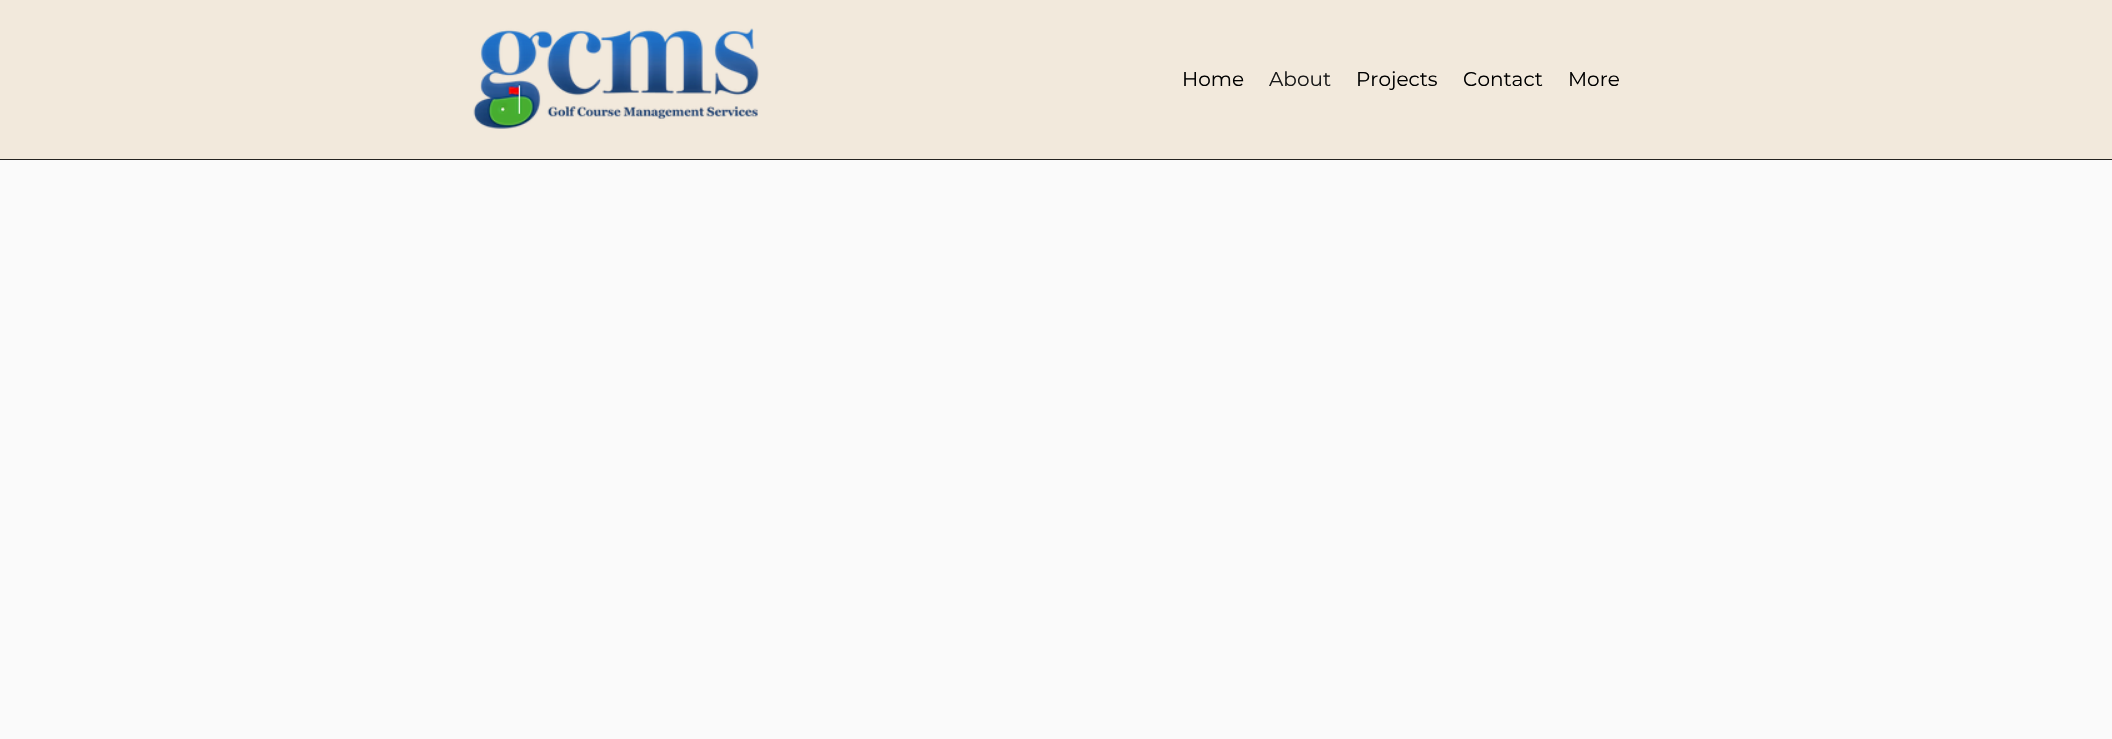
void draw(SkCanvas* c) {
SkPaint p;
p.setAntiAlias(true);
auto F=[&](const char* family, int weight, float size, bool italic = false){SkFontStyle style(weight, SkFontStyle::kNormal_Width,italic ? SkFontStyle::kItalic_Slant : SkFontStyle::kUpright_Slant);SkFont result(fontMgr->matchFamilyStyle(family, style), size);result.setSubpixel(true);return result;};
auto T=[&](const char* s, float x, float y, const SkFont& font){c->drawString(s, x, y, font, p);};
auto R=[&](float x, float y, float w, float h){c->drawRect(SkRect::MakeXYWH(x, y, w, h), p);};
auto I=[&](const char* path, float x, float y, float w, float h){auto image = SkImages::DeferredFromEncodedData(SkData::MakeFromFileName(path));c->drawImageRect(image, SkRect::MakeXYWH(x, y, w, h), SkSamplingOptions());};
c->clear(0xfffafafa);
p.setColor(0xfff2e9dc);
R(0,0,2112,159);
I("1.png",473,28,286,101);
auto f1 = F("Montserrat",400,20);
p.setColor(0xff000000);
T("Home",1182,86,f1);
p.setColor(0xff191919);
T("About",1269,86,f1);
p.setColor(0xff000000);
T("Projects",1356,86,f1);
T("Contact",1463,86,f1);
T("More",1568,86,f1);
p.setColor(0xff242321);
R(0,159,2112,1);
}
